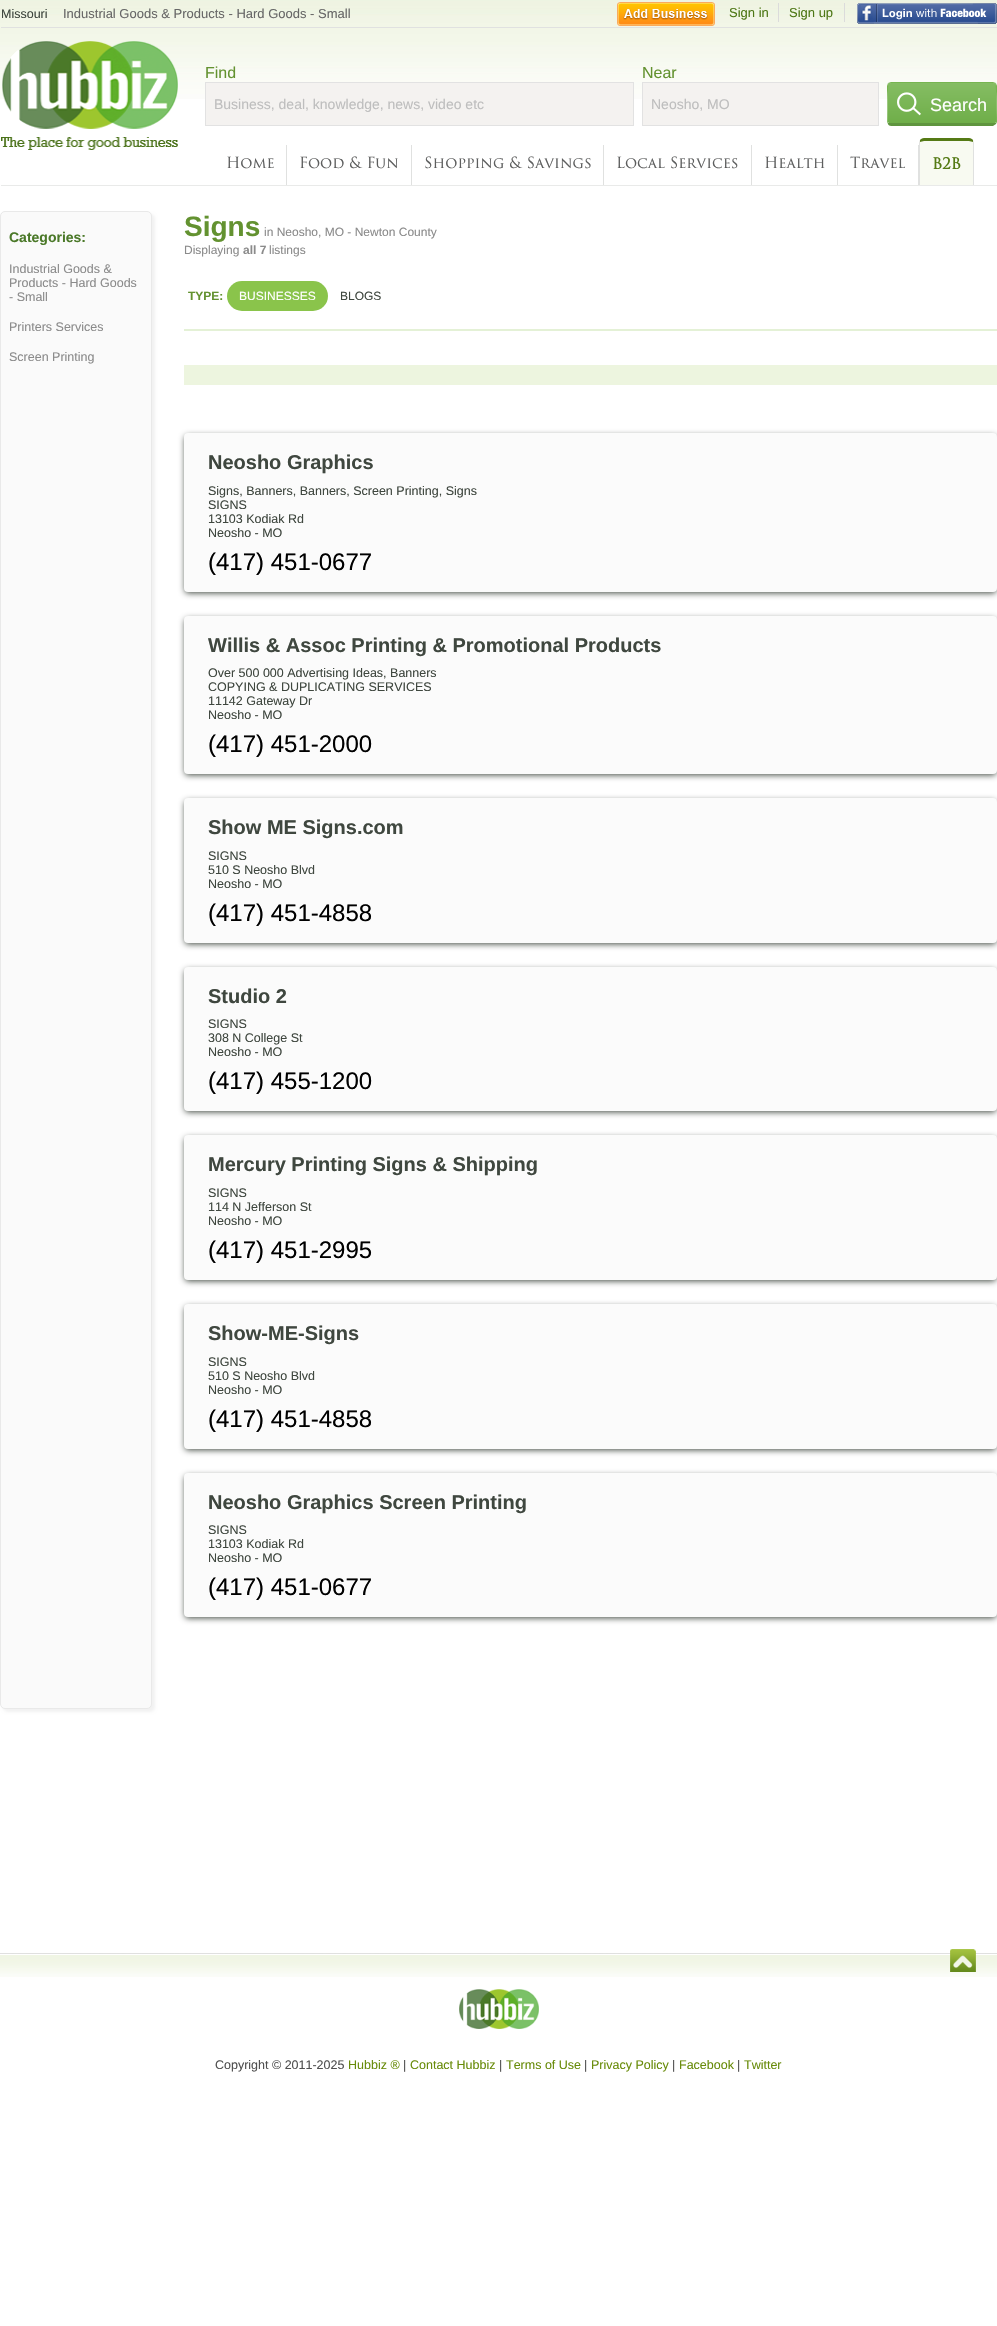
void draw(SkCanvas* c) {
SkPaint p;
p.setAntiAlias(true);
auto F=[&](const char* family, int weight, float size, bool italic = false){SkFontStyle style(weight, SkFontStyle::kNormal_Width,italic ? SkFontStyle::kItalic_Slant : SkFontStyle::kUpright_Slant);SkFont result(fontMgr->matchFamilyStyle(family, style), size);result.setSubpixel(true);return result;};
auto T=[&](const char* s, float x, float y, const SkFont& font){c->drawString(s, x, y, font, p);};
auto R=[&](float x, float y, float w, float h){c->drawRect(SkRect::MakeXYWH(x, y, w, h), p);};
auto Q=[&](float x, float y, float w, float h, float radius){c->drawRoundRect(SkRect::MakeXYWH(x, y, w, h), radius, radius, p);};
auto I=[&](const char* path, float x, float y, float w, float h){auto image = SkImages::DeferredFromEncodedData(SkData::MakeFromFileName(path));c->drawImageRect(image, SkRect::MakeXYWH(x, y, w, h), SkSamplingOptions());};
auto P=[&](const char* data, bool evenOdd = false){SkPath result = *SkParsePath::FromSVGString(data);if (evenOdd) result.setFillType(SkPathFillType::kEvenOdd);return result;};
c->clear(0xffffffff);
I("1.png",0,0,997,99);
p.setColor(0xffe9eae9);
R(1,185,996,1);
p.setColor(0xffe0e1e0);
R(1,27,996,1);
auto f1 = F("Liberation Sans",400,12.5);
p.setColor(0xff3f473f);
T("Missouri",1,18,f1);
auto f2 = F("Liberation Sans",400,13);
p.setColor(0xff676767);
T("Industrial Goods & Products - Hard Goods - Small",63,18,f2);
I("2.png",617,2,98,24);
p.setColor(0xffdbdbdb);
R(778,3,1,19);
p.setColor(0xff4d7715);
T("Sign in",729,17,f2);
p.setColor(0xffdbdbdb);
R(844,3,1,19);
p.setColor(0xff4d7715);
T("Sign up",789,17,f2);
I("3.png",857,3,140,21);
I("4.png",1,41,177,109);
auto f3 = F("Liberation Sans",400,16);
p.setColor(0xff639230);
T("Find",205,78,f3);
p.setColor(0xfff4f2f0);
c->drawRect(SkRect::MakeXYWH(205.5,82.5,428,43),p);
p.setStroke(true);
p.setStrokeWidth(1);
p.setColor(0xffe2e2e2);
c->drawRect(SkRect::MakeXYWH(205.5,82.5,428,43),p);
auto f4 = F("Liberation Sans",400,14);
p.setStroke(false);
p.setColor(0xffbebebe);
T("Business, deal, knowledge, news, video etc",214,109,f4);
p.setColor(0xff639230);
T("Near",642,78,f3);
p.setColor(0xfff4f2f0);
c->drawRect(SkRect::MakeXYWH(642.5,82.5,236,43),p);
p.setStroke(true);
p.setColor(0xffe2e2e2);
c->drawRect(SkRect::MakeXYWH(642.5,82.5,236,43),p);
p.setStroke(false);
p.setColor(0xffbebebe);
T("Neosho, MO",651,109,f4);
{
const SkColor colors[] = {0xff97db6e,0xff85bd63,0xff6fae49};
const float stops[] = {0,.5,1};
const SkPoint ends[] = {{942,43}, {942,123}};
p.setShader(SkGradientShader::MakeLinear(ends, colors, stops, 3, SkTileMode::kClamp));
p.setAlpha(255);
}
c->drawPath(P("M891 83h102c2 0 3 1 3 3v36c0 1-1 1-3 1h-102c-2 0-3 0-3-1v-36c0-2 1-3 3-3z"),p);
p.setShader(nullptr);
p.setColor(0xff77b551);
c->drawPath(P("M891 82l-3 1l1 1l2-1h102l2 1l1-1l-3-1z"),p);
c->drawPath(P("M997 122v-36c0-1-1-2-1-3l-1 1c2 1 1 38 1 39v1z"),p);
p.setColor(0xff5f953f);
c->drawPath(P("M891 126h102l3-2v-1h-3h-103h-2v1c0 1 2 2 3 2z"),p);
p.setColor(0xff77b551);
c->drawPath(P("M887 86v36l1 2v-1c0-1-1-38 1-39l-1-1z"),p);
I("5.png",897,92,24,24);
auto f5 = F("Liberation Sans",400,18);
p.setColor(0xffffffff);
T("Search",930,111,f5);
p.setColor(0xffe0e1e0);
R(286,145,1,40);
auto f6 = F("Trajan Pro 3",400,15);
p.setColor(0xff5d5e5e);
T("Home",226,168,f6);
p.setColor(0xffe0e1e0);
R(411,145,1,40);
p.setColor(0xff5d5e5e);
T("Food & Fun",299,168,f6);
p.setColor(0xffe0e1e0);
R(603,145,1,40);
p.setColor(0xff5d5e5e);
T("Shopping & Savings",424,168,f6);
p.setColor(0xffe0e1e0);
R(751,145,1,40);
p.setColor(0xff5d5e5e);
T("Local Services",616,168,f6);
p.setColor(0xffe0e1e0);
R(837,145,1,40);
p.setColor(0xff5d5e5e);
T("Health",764,168,f6);
p.setColor(0xffe0e1e0);
R(918,145,1,40);
p.setColor(0xff5d5e5e);
T("Travel",850,168,f6);
p.setColor(0xfff8faf1);
c->drawPath(P("M924 138h45c3 0 5 2 5 5v42h-55v-42c0-3 2-5 5-5z"),p);
p.setColor(0xff557a15);
c->drawPath(P("M924 138c-2 0-3 1-4 2v2c1 0 3-1 4-1h45c1 0 3 1 4 1v-2c-1-1-2-2-4-2z"),p);
p.setColor(0xffe0e1e0);
c->drawPath(P("M973 185h1v-42l-1-3v2c0 1 0 38 0 43zm-54 0h1c0-5 0-42 0-43v-2l-1 3z"),p);
auto f7 = F("Trajan Pro 3",700,15);
p.setColor(0xff557a15);
T("B2B",932,169,f7);
p.setColor(0x0d000000);
p.setMaskFilter(SkMaskFilter::MakeBlur(kNormal_SkBlurStyle, 1.5));
c->drawRoundRect(SkRect::MakeXYWH(3,214,152,1498),5,5,p);
p.setMaskFilter(nullptr);
p.setColor(0xfffafafa);
c->drawRoundRect(SkRect::MakeXYWH(.5,211.5,151,1497),4.5,4.5,p);
p.setStroke(true);
p.setColor(0xffe9e9e9);
c->drawRoundRect(SkRect::MakeXYWH(.5,211.5,151,1497),4.5,4.5,p);
auto f8 = F("Liberation Sans",700,14);
p.setStroke(false);
p.setColor(0xff4b7929);
T("Categories:",9,242,f8);
p.setColor(0xff8b8b8b);
T("Industrial Goods &",9,273,f1);
T("Products - Hard Goods",9,287,f1);
T("- Small",9,301,f1);
T("Printers Services",9,331,f1);
T("Screen Printing",9,361,f1);
auto f9 = F("Liberation Sans",700,28);
p.setColor(0xff639230);
T("Signs",184,236,f9);
auto f10 = F("Liberation Sans",400,12);
p.setColor(0xff8b8b8b);
T("in Neosho, MO - Newton County",264,236,f10);
T("Displaying",184,254,f10);
auto f11 = F("Liberation Sans",700,12);
T("all 7",243,254,f11);
T("listings",269,254,f10);
p.setColor(0xffe4f1d6);
R(184,329,813,2);
p.setColor(0xff639230);
T("TYPE:",188,300,f11);
p.setColor(0xff8ac44b);
Q(227,281,101,30,15);
p.setColor(0xffffffff);
T("BUSINESSES",239,300,f10);
p.setColor(0xff3f473f);
T("BLOGS",340,300,f10);
p.setColor(0xffedf5df);
R(184,365,813,20);
p.setColor(0xff3f473f);
p.setMaskFilter(SkMaskFilter::MakeBlur(kNormal_SkBlurStyle, 3));
c->drawRoundRect(SkRect::MakeXYWH(185,436,811,157),3,3,p);
p.setMaskFilter(nullptr);
p.setColor(0xfffbfbfb);
Q(184,433,813,159,4);
auto f12 = F("Liberation Sans",700,20);
p.setColor(0xff3f473f);
T("Neosho Graphics",208,469,f12);
T("Signs, Banners, Banners, Screen Printing, Signs",208,495,f1);
T("SIGNS",208,509,f1);
T("13103 Kodiak Rd",208,523,f1);
T("Neosho - MO",208,537,f1);
auto f13 = F("Liberation Sans",400,24);
p.setColor(0xff000000);
T("(417) 451-0677",208,570,f13);
p.setColor(0xff3f473f);
p.setMaskFilter(SkMaskFilter::MakeBlur(kNormal_SkBlurStyle, 3));
c->drawRoundRect(SkRect::MakeXYWH(185,619,811,156),3,3,p);
p.setMaskFilter(nullptr);
p.setColor(0xfffbfbfb);
Q(184,616,813,158,4);
p.setColor(0xff3f473f);
T("Willis & Assoc Printing & Promotional Products",208,652,f12);
T("Over 500 000 Advertising Ideas, Banners",208,677,f1);
T("COPYING & DUPLICATING SERVICES",208,691,f1);
T("11142 Gateway Dr",208,705,f1);
T("Neosho - MO",208,719,f1);
p.setColor(0xff000000);
T("(417) 451-2000",208,752,f13);
p.setColor(0xff3f473f);
p.setMaskFilter(SkMaskFilter::MakeBlur(kNormal_SkBlurStyle, 3));
c->drawRoundRect(SkRect::MakeXYWH(185,801,811,143),3,3,p);
p.setMaskFilter(nullptr);
p.setColor(0xfffbfbfb);
Q(184,798,813,145,4);
p.setColor(0xff3f473f);
T("Show ME Signs.com",208,834,f12);
T("SIGNS",208,860,f1);
T("510 S Neosho Blvd",208,874,f1);
T("Neosho - MO",208,888,f1);
p.setColor(0xff000000);
T("(417) 451-4858",208,921,f13);
p.setColor(0xff3f473f);
p.setMaskFilter(SkMaskFilter::MakeBlur(kNormal_SkBlurStyle, 3));
c->drawRoundRect(SkRect::MakeXYWH(185,970,811,142),3,3,p);
p.setMaskFilter(nullptr);
p.setColor(0xfffbfbfb);
Q(184,967,813,144,4);
p.setColor(0xff3f473f);
T("Studio 2",208,1003,f12);
T("SIGNS",208,1028,f1);
T("308 N College St",208,1042,f1);
T("Neosho - MO",208,1056,f1);
p.setColor(0xff000000);
T("(417) 455-1200",208,1089,f13);
p.setColor(0xff3f473f);
p.setMaskFilter(SkMaskFilter::MakeBlur(kNormal_SkBlurStyle, 3));
c->drawRoundRect(SkRect::MakeXYWH(185,1138,811,143),3,3,p);
p.setMaskFilter(nullptr);
p.setColor(0xfffbfbfb);
Q(184,1135,813,145,4);
p.setColor(0xff3f473f);
T("Mercury Printing Signs & Shipping",208,1171,f12);
T("SIGNS",208,1197,f1);
T("114 N Jefferson St",208,1211,f1);
T("Neosho - MO",208,1225,f1);
p.setColor(0xff000000);
T("(417) 451-2995",208,1258,f13);
p.setColor(0xff3f473f);
p.setMaskFilter(SkMaskFilter::MakeBlur(kNormal_SkBlurStyle, 3));
c->drawRoundRect(SkRect::MakeXYWH(185,1307,811,143),3,3,p);
p.setMaskFilter(nullptr);
p.setColor(0xfffbfbfb);
Q(184,1304,813,145,4);
p.setColor(0xff3f473f);
T("Show-ME-Signs",208,1340,f12);
T("SIGNS",208,1366,f1);
T("510 S Neosho Blvd",208,1380,f1);
T("Neosho - MO",208,1394,f1);
p.setColor(0xff000000);
T("(417) 451-4858",208,1427,f13);
p.setColor(0xff3f473f);
p.setMaskFilter(SkMaskFilter::MakeBlur(kNormal_SkBlurStyle, 3));
c->drawRoundRect(SkRect::MakeXYWH(185,1476,811,142),3,3,p);
p.setMaskFilter(nullptr);
p.setColor(0xfffbfbfb);
Q(184,1473,813,144,4);
p.setColor(0xff3f473f);
T("Neosho Graphics Screen Printing",208,1509,f12);
T("SIGNS",208,1534,f1);
T("13103 Kodiak Rd",208,1548,f1);
T("Neosho - MO",208,1562,f1);
p.setColor(0xff000000);
T("(417) 451-0677",208,1595,f13);
I("6.png",0,1953,997,24);
I("7.png",950,1949,26,23);
I("8.png",459,1989,80,40);
p.setColor(0xff4f4f4f);
T("Copyright © 2011-2025",215,2069,f1);
p.setColor(0xff688b09);
T("Hubbiz ®",348,2069,f1);
p.setColor(0xff4f4f4f);
T("|",403,2069,f1);
p.setColor(0xff688b09);
T("Contact Hubbiz",410,2069,f1);
p.setColor(0xff4f4f4f);
T("|",499,2069,f1);
p.setColor(0xff688b09);
T("Terms of Use",506,2069,f1);
p.setColor(0xff4f4f4f);
T("|",584,2069,f1);
p.setColor(0xff688b09);
T("Privacy Policy",591,2069,f1);
p.setColor(0xff4f4f4f);
T("|",672,2069,f1);
p.setColor(0xff688b09);
T("Facebook",679,2069,f1);
p.setColor(0xff4f4f4f);
T("|",737,2069,f1);
p.setColor(0xff688b09);
T("Twitter",744,2069,f1);
}
